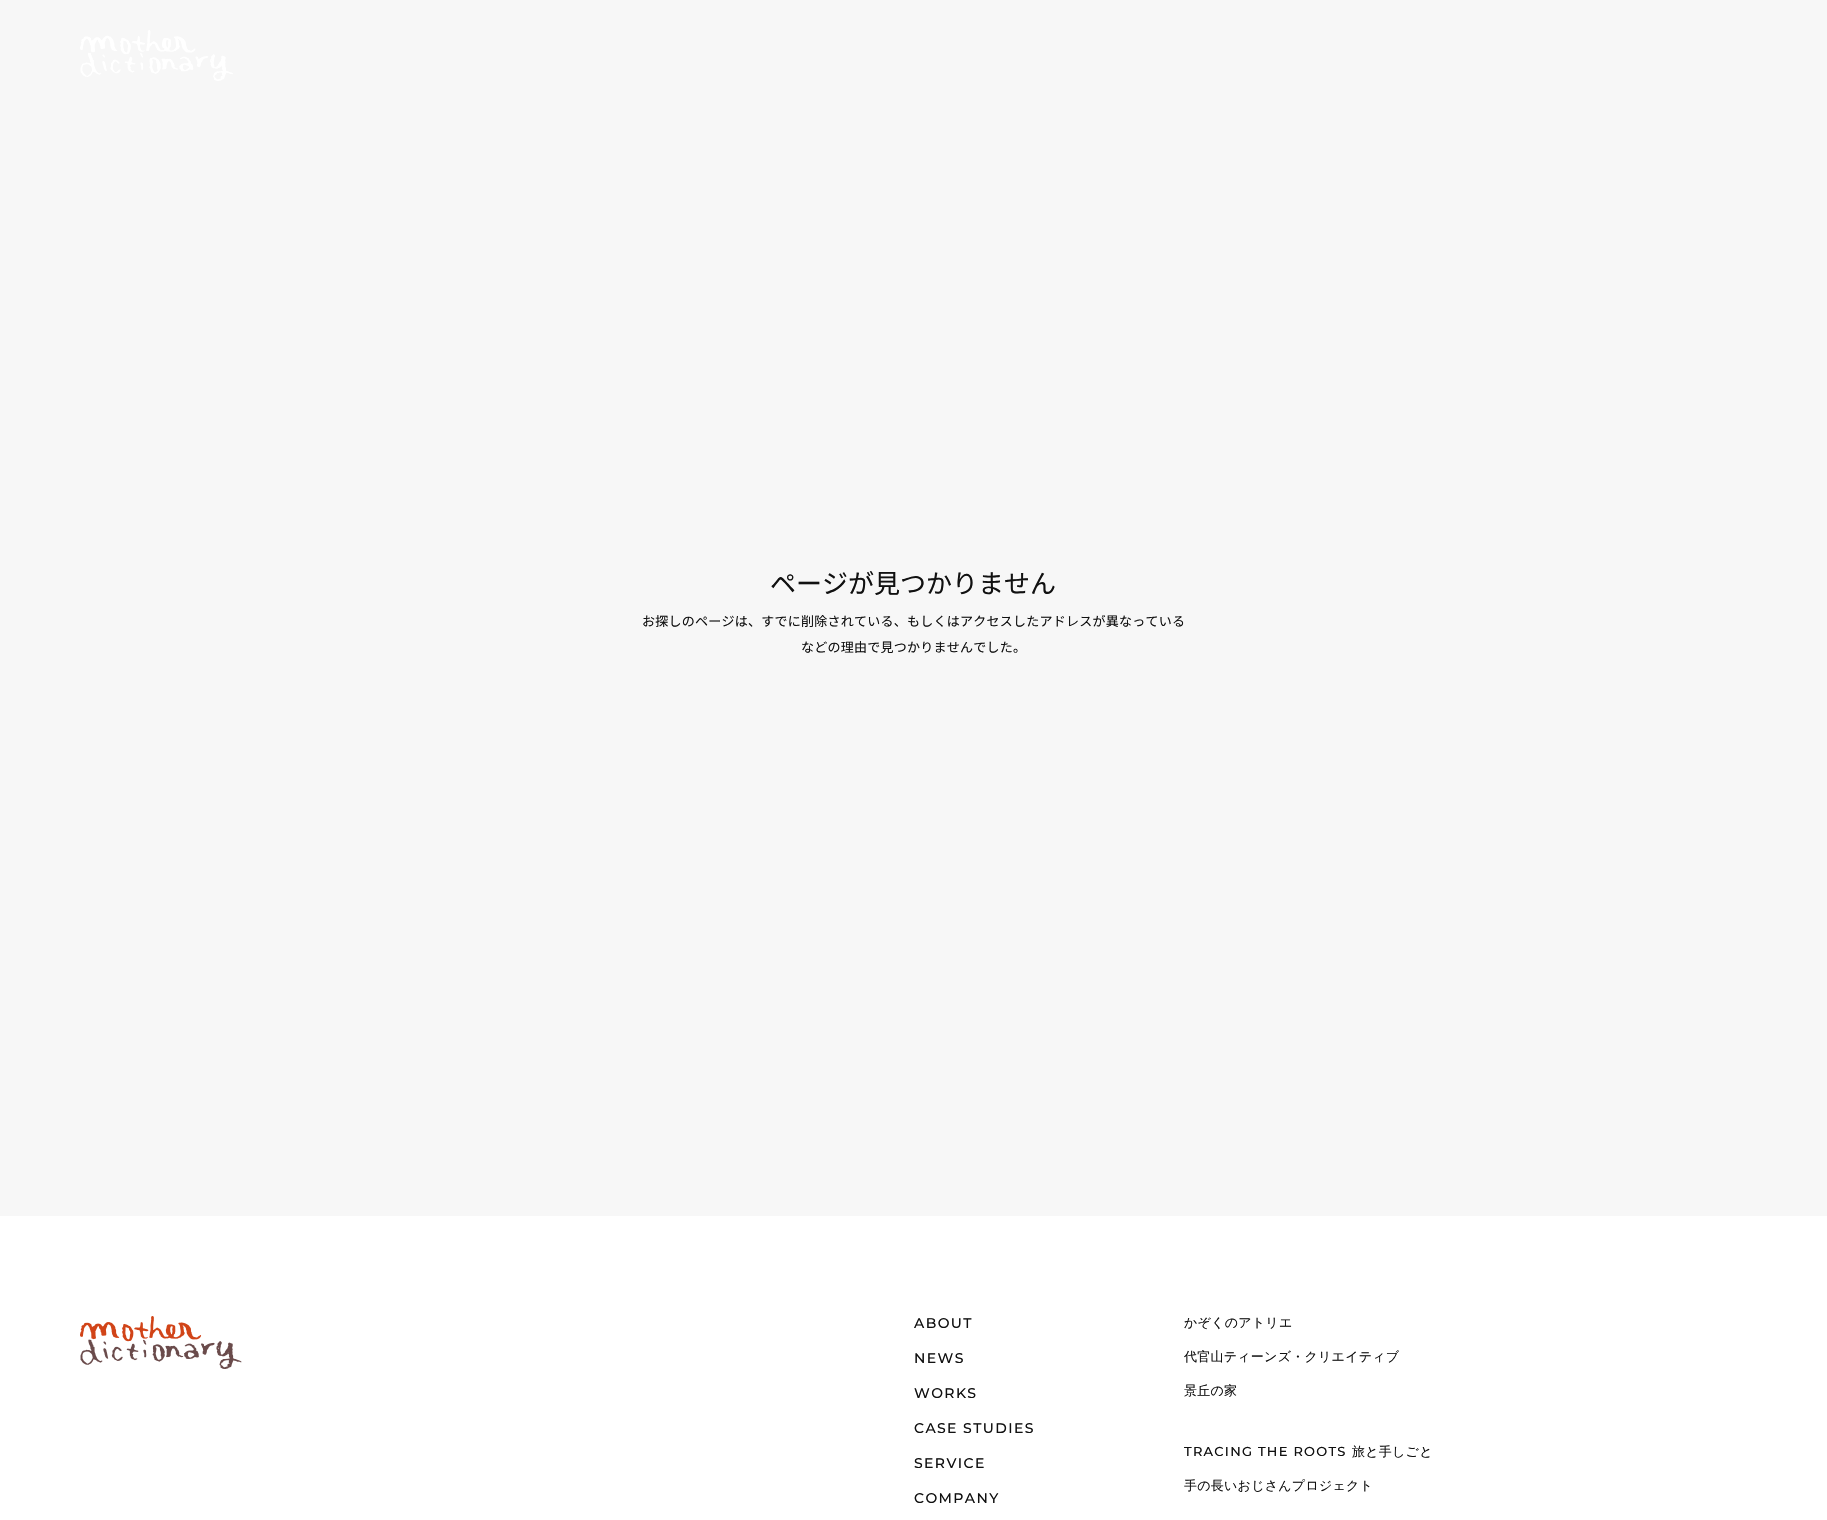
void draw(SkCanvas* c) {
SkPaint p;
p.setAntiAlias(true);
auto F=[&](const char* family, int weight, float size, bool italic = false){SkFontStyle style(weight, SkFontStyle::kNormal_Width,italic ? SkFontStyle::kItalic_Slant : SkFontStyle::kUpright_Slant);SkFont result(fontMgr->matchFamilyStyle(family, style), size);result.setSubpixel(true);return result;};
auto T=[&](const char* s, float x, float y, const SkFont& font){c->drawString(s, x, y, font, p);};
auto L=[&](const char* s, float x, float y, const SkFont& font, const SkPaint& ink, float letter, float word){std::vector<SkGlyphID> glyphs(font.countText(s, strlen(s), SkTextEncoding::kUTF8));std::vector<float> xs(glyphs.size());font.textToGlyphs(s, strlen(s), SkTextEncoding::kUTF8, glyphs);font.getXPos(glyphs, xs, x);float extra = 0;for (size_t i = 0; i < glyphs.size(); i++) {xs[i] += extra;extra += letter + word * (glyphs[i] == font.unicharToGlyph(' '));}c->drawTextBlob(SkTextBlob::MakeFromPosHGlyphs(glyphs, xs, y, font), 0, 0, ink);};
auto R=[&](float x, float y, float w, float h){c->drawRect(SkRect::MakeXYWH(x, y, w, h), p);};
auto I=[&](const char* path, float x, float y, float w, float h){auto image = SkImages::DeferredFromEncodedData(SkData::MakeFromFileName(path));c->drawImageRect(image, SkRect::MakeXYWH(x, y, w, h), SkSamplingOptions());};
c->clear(0xfff7f7f7);
I("1.png",80,30,153,51);
auto f1 = F("Noto Sans JP",100,26);
p.setColor(0xff111111);
T("ページが見つかりません",770,593,f1);
auto f2 = F("Noto Sans JP",100,13);
L("お探しのページは、すでに削除されている、もしくはアクセスしたアドレスが異なっている",642,626,f2,p,.25,0);
L("などの理由で見つかりませんでした。",801,652,f2,p,.25,0);
p.setColor(0xffffffff);
R(0,1216,1827,304);
I("2.png",80,1316,162,53);
auto f3 = F("Montserrat",100,14);
p.setColor(0xff111111);
L("ABOUT",914,1328,f3,p,1.4,0);
L("NEWS",914,1363,f3,p,1.4,0);
L("WORKS",914,1398,f3,p,1.4,0);
L("CASE STUDIES",914,1433,f3,p,1.4,0);
L("SERVICE",914,1468,f3,p,1.4,0);
L("COMPANY",914,1503,f3,p,1.4,0);
auto f4 = F("WenQuanYi Zen Hei",500,13);
L("かぞくのアトリエ",1184,1327,f4,p,.25,0);
L("代官山ティーンズ・クリエイティブ",1184,1361,f4,p,.25,0);
L("景丘の家",1184,1395,f4,p,.25,0);
auto f5 = F("Montserrat",100,13);
L("TRACING THE ROOTS",1184,1456,f5,p,1.25,0);
L("旅と手しごと",1352,1456,f4,p,.25,0);
L("手の長いおじさんプロジェクト",1184,1490,f4,p,.25,0);
}
